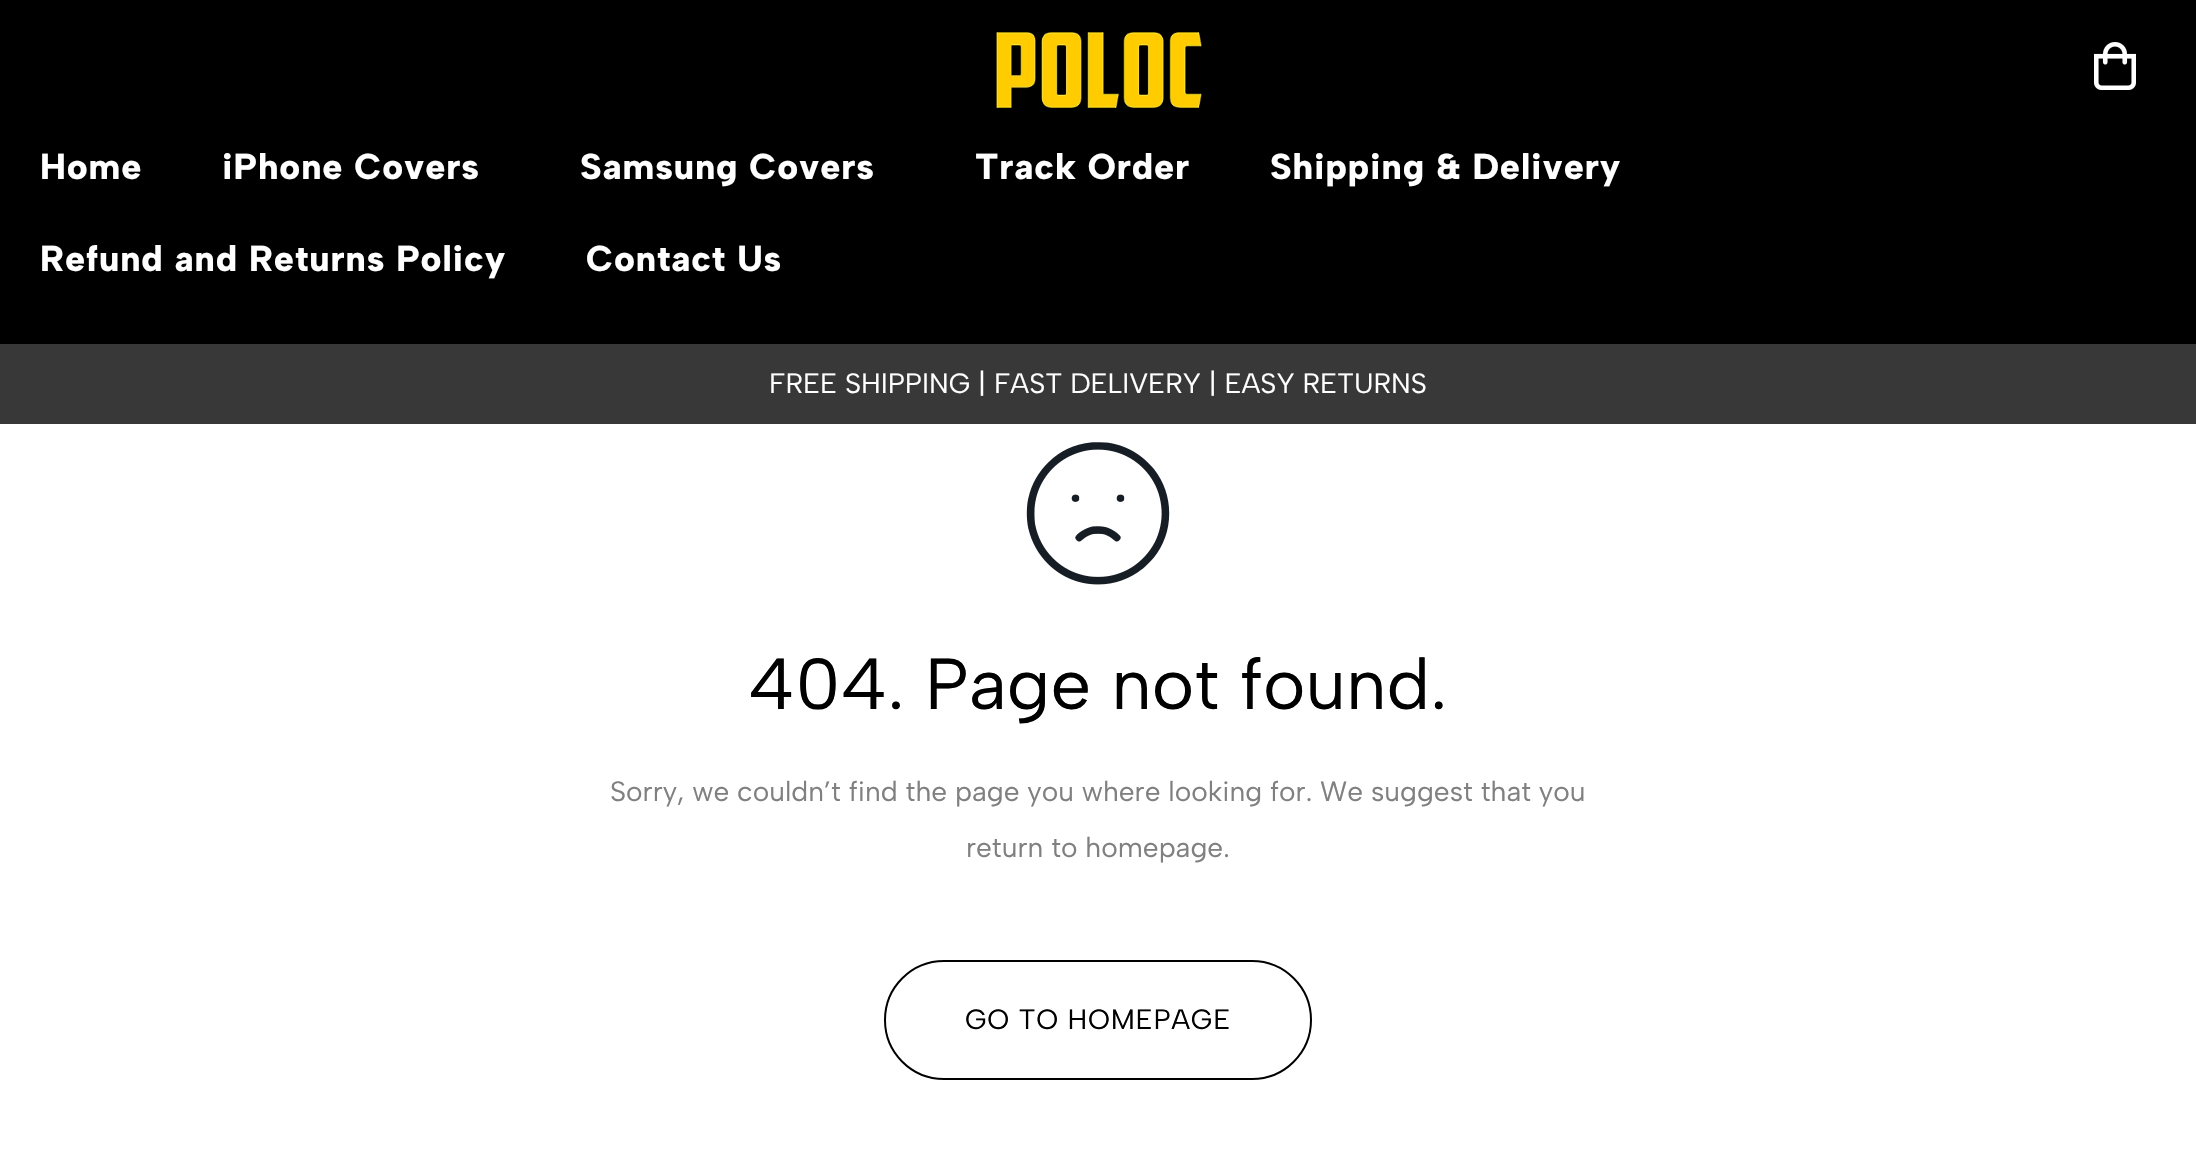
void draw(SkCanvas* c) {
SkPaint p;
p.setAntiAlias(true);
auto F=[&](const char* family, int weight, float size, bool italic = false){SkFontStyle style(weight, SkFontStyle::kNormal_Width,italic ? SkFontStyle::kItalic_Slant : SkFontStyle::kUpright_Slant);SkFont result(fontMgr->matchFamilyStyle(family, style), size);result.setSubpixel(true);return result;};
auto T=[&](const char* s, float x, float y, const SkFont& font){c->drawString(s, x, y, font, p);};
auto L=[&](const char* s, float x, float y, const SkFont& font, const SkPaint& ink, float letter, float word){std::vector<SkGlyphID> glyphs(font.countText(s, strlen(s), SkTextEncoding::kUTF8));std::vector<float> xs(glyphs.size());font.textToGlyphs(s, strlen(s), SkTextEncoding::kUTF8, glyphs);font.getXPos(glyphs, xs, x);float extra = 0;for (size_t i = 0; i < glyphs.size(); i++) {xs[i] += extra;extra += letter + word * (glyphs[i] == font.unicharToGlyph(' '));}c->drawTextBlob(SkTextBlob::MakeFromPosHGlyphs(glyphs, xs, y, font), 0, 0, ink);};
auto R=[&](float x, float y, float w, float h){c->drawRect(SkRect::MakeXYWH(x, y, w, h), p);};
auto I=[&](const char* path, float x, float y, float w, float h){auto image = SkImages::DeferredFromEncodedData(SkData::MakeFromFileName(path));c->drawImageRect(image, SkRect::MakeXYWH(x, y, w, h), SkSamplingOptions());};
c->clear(0xffffffff);
p.setColor(0xff000000);
R(0,0,2196,344);
I("1.png",996,32,206,76);
I("2.png",2094,42,42,48);
auto f1 = F("Albert Sans",800,36);
p.setColor(0xffffffff);
L("Home",40,179,f1,p,.9,0);
L("iPhone Covers",222,179,f1,p,.9,0);
L("Samsung Covers",580,179,f1,p,.9,0);
L("Track Order",975,179,f1,p,.9,0);
L("Shipping & Delivery",1270,179,f1,p,.9,0);
L("Refund and Returns Policy",40,271,f1,p,.9,0);
L("Contact Us",586,271,f1,p,.9,0);
p.setColor(0xff383838);
R(0,344,2196,80);
auto f2 = F("Albert Sans",400,28);
p.setColor(0xffffffff);
T("FREE SHIPPING | FAST DELIVERY | EASY RETURNS",769,393,f2);
I("3.png",1026,442,144,143);
auto f3 = F("Albert Sans",400,72);
p.setColor(0xff000000);
T("404. Page not found.",748,709,f3);
p.setColor(0xff808080);
T("Sorry, we couldn’t find the page you where looking for. We suggest that you",610,801,f2);
T("return to homepage.",966,857,f2);
p.setStroke(true);
p.setStrokeWidth(2);
p.setColor(0xff000000);
c->drawRoundRect(SkRect::MakeXYWH(885,961,426,118),59,59,p);
p.setStroke(false);
L("GO TO HOMEPAGE",965,1029,f2,p,.75,0);
}
